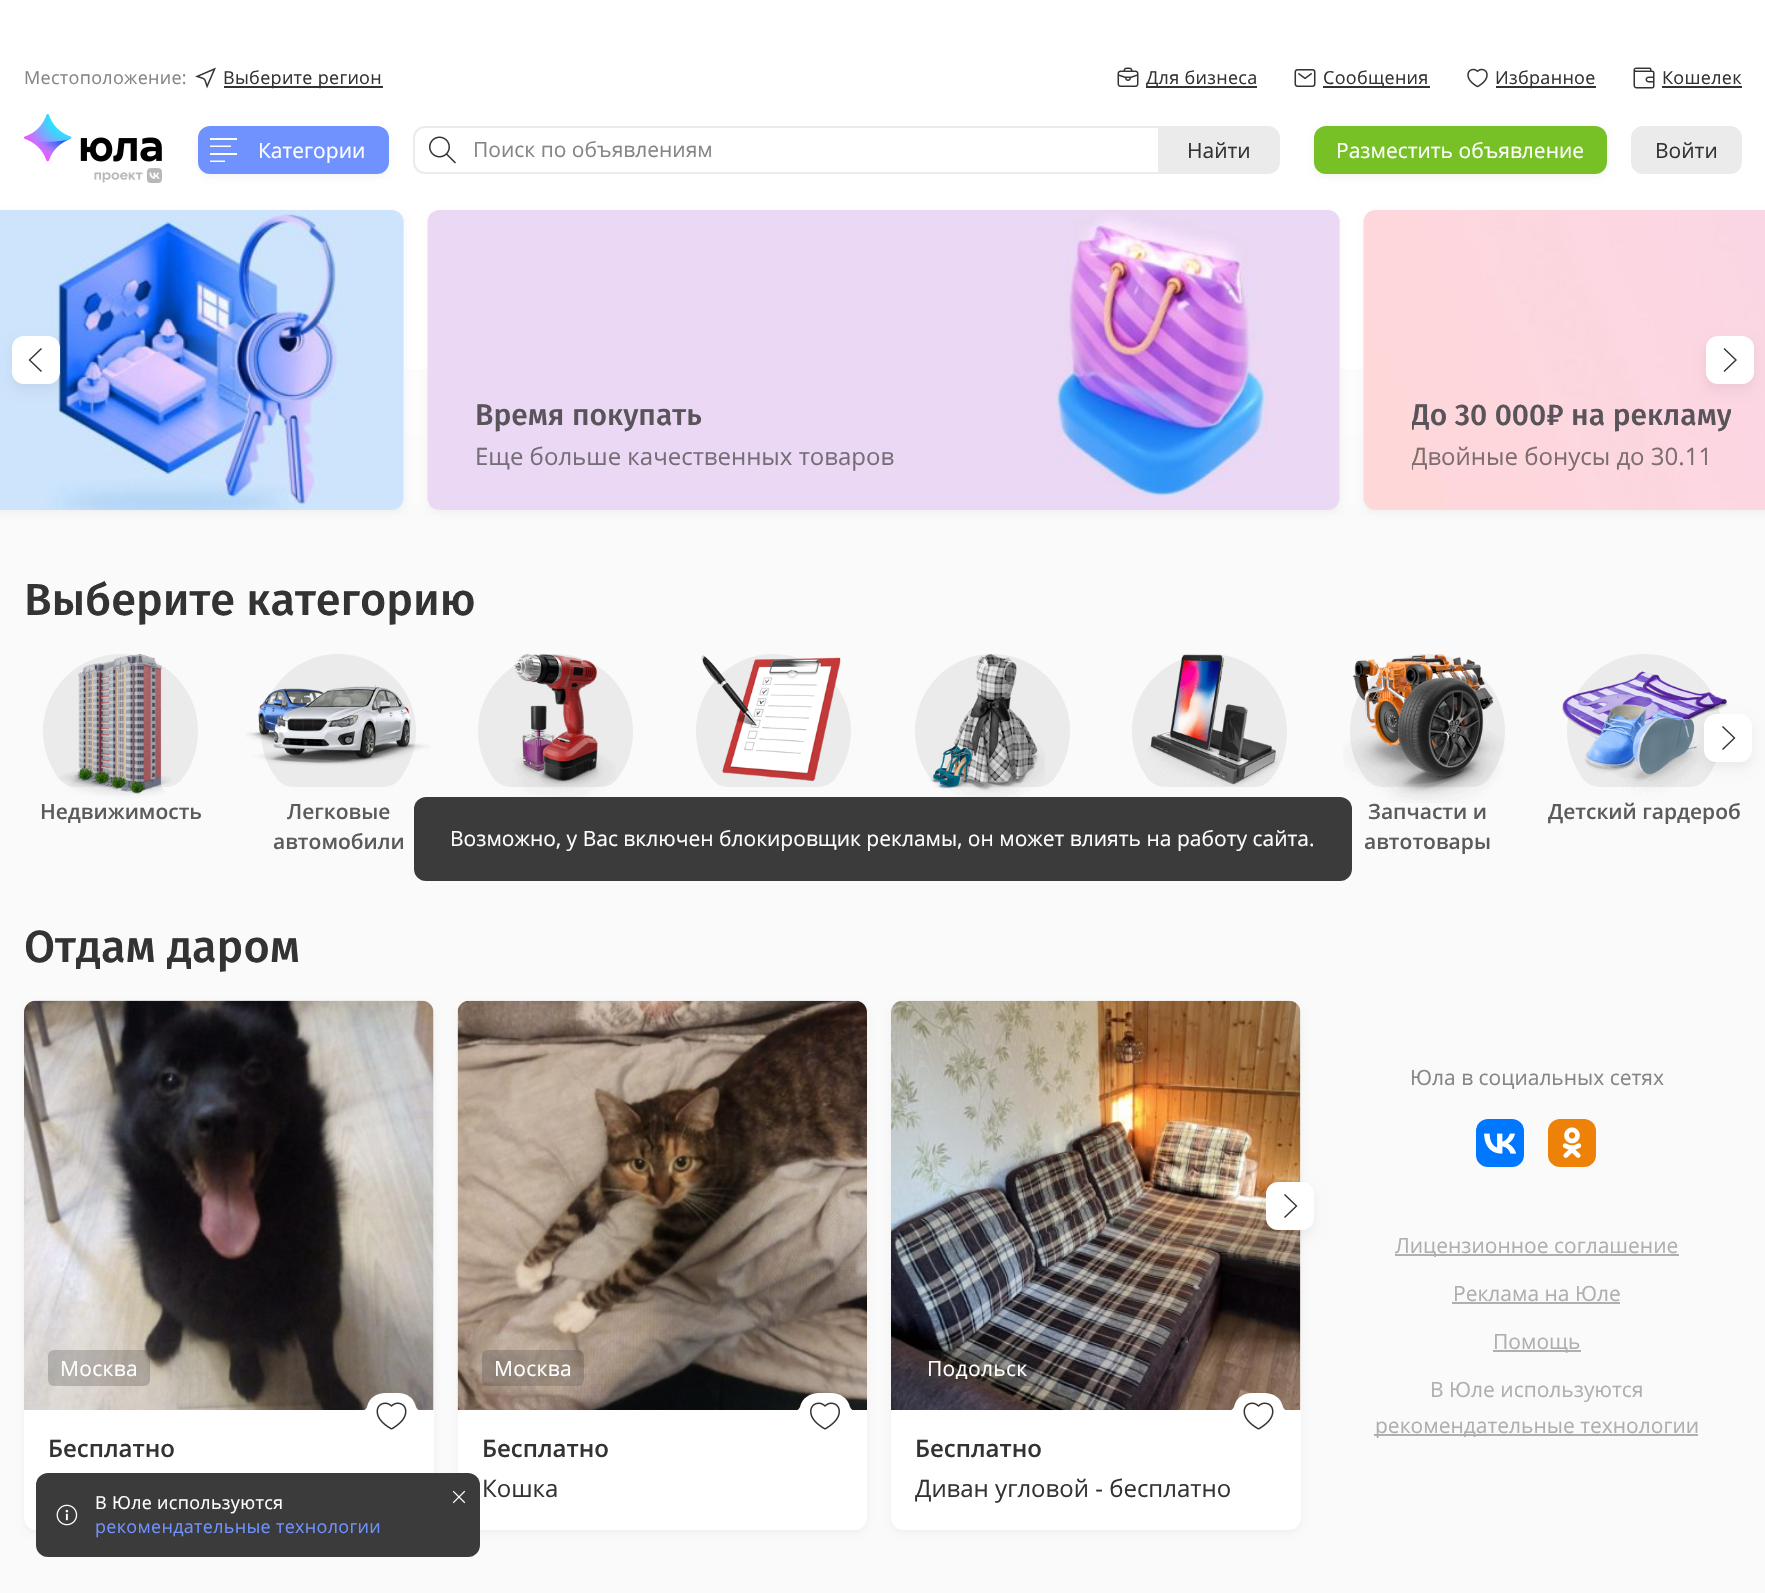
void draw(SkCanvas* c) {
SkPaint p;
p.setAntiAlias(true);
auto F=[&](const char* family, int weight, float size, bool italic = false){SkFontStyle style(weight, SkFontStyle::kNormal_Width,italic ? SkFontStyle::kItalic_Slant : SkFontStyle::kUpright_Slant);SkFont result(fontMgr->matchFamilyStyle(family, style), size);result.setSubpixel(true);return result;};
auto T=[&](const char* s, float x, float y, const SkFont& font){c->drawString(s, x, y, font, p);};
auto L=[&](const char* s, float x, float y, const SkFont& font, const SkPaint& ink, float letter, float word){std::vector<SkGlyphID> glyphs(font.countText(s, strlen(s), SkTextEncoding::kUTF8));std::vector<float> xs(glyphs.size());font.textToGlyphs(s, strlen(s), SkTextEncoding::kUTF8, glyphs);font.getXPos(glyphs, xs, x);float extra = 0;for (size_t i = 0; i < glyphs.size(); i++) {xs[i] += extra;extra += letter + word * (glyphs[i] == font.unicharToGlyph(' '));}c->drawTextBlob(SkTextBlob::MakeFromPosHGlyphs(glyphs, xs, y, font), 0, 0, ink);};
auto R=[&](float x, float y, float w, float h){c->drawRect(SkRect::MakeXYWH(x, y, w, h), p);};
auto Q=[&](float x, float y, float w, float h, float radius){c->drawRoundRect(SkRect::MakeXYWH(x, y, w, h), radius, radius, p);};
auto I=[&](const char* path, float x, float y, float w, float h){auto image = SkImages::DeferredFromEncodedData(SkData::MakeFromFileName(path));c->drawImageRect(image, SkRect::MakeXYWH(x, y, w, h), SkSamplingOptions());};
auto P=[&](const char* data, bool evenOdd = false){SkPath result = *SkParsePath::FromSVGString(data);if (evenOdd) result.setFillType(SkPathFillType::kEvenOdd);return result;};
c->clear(0xffffffff);
auto f1 = F("Open Sans",400,18);
p.setColor(0xff858585);
L("Местоположение:",24,84,f1,p,.3,0);
I("1.png",195,67,21,22);
p.setColor(0xff333333);
R(224,86,159,2);
L("Выберите регион",223,84,f1,p,.3,0);
I("2.png",1117,67,22,20);
R(1146,86,111,2);
L("Для бизнеса",1146,84,f1,p,.3,0);
I("3.png",1294,69,22,18);
R(1323,86,107,2);
L("Сообщения",1323,84,f1,p,.3,0);
I("4.png",1467,68,21,20);
R(1496,86,100,2);
L("Избранное",1495,84,f1,p,.3,0);
I("5.png",1633,67,22,22);
L("Кошелек",1662,84,f1,p,.3,0);
R(1662,86,80,2);
I("6.png",24,114,138,70);
p.setColor(0x0a000000);
p.setMaskFilter(SkMaskFilter::MakeBlur(kNormal_SkBlurStyle, 3));
c->drawRoundRect(SkRect::MakeXYWH(198,129,191,48),12,12,p);
p.setMaskFilter(nullptr);
p.setColor(0xff7092fe);
Q(198,126,191,48,12);
p.setColor(0xffffffff);
R(210,138,27,2);
c->save();
c->clipRect(SkRect::MakeXYWH(210,140,21,7));
p.setStroke(true);
p.setStrokeWidth(3);
c->drawPath(P("M210 147h36"),p);
c->restore();
p.setStroke(false);
R(210,153,27,2);
c->save();
c->clipRect(SkRect::MakeXYWH(210,155,15,7));
p.setStroke(true);
c->drawPath(P("M210 162h36"),p);
c->restore();
auto f2 = F("Open Sans",400,21);
p.setStroke(false);
T("Категории",258,158,f2);
p.setStroke(true);
p.setStrokeWidth(2);
p.setColor(0xffebebeb);
c->drawPath(P("M425 127h734v46h-734c-6 0-11-5-11-11v-24c0-6 5-11 11-11z"),p);
I("7.png",429,136,27,28);
p.setStroke(false);
p.setColor(0xff858585);
T("Поиск по объявлениям",473,157,f2);
p.setColor(0xffebebeb);
c->drawPath(P("M1160 126h108c6.5 0 12 5.5 12 12v24c0 6.5-5.5 12-12 12h-108z"),p);
p.setColor(0xff333333);
T("Найти",1187,158,f2);
p.setColor(0x0a000000);
p.setMaskFilter(SkMaskFilter::MakeBlur(kNormal_SkBlurStyle, 3));
c->drawRoundRect(SkRect::MakeXYWH(1314,129,293,48),12,12,p);
p.setMaskFilter(nullptr);
p.setColor(0xff77c026);
Q(1314,126,293,48,12);
p.setColor(0xffffffff);
T("Разместить объявление",1336,158,f2);
p.setColor(0xffebebeb);
Q(1631,126,111,48,12);
p.setColor(0xff333333);
T("Войти",1655,158,f2);
{
const SkColor colors[] = {0xffffffff,0xfffafafa};
const float stops[] = {0,.09};
const SkPoint ends[] = {{883,198}, {883,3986}};
p.setShader(SkGradientShader::MakeLinear(ends, colors, stops, 2, SkTileMode::kClamp));
p.setAlpha(255);
}
R(0,369,1765,1224);
p.setShader(nullptr);
p.setColor(0x0a000000);
p.setMaskFilter(SkMaskFilter::MakeBlur(kNormal_SkBlurStyle, 3));
c->drawRoundRect(SkRect::MakeXYWH(-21,213,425,300),12,12,p);
p.setMaskFilter(nullptr);
p.setColor(0xfff5f5f5);
c->drawPath(P("M0 210h392c6.5 0 12 5.5 12 12v276c0 6.5-5.5 12-12 12h-392z"),p);
I("8.png",0,210,404,300);
p.setColor(0x0f000000);
p.setMaskFilter(SkMaskFilter::MakeBlur(kNormal_SkBlurStyle, 6));
c->drawRoundRect(SkRect::MakeXYWH(12,342,48,48),12,12,p);
p.setMaskFilter(nullptr);
p.setColor(0xffffffff);
Q(12,336,48,48,12);
p.setColor(0xff333333);
c->drawPath(P("M30.5 360l11.5 11l-1 1l-12.5-12l12.5-12l1 1z"),p);
p.setColor(0x0a000000);
p.setMaskFilter(SkMaskFilter::MakeBlur(kNormal_SkBlurStyle, 3));
c->drawRoundRect(SkRect::MakeXYWH(1364,213,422,300),12,12,p);
p.setMaskFilter(nullptr);
I("10.png",1363,210,402,300);
p.setColor(0x0f000000);
p.setMaskFilter(SkMaskFilter::MakeBlur(kNormal_SkBlurStyle, 6));
c->drawRoundRect(SkRect::MakeXYWH(1706,342,48,48),12,12,p);
p.setMaskFilter(nullptr);
p.setColor(0xffffffff);
Q(1706,336,48,48,12);
p.setColor(0xff333333);
c->drawPath(P("M1735 360l-11.5-11l1-1l12.5 12l-12.5 12l-1-1z"),p);
p.setColor(0x0a000000);
p.setMaskFilter(SkMaskFilter::MakeBlur(kNormal_SkBlurStyle, 3));
c->drawRoundRect(SkRect::MakeXYWH(428,213,912,300),12,12,p);
p.setMaskFilter(nullptr);
p.setColor(0xfff5f5f5);
Q(428,210,912,300,12);
I("9.png",427,210,913,300);
auto f3 = F("Fira Sans",500,30);
p.setColor(0xff58545a);
T("Время покупать",475,425,f3);
auto f4 = F("Open Sans",400,24);
p.setColor(0xff756e78);
T("Еще больше качественных товаров",475,465,f4);
c->save();
c->clipRect(SkRect::MakeXYWH(1412,390,319,48));
p.setColor(0xff58545a);
T("До 30 000₽ на рекламу",1411,425,f3);
c->restore();
c->save();
c->clipRect(SkRect::MakeXYWH(1412,438,300,36));
p.setColor(0xff7c6e70);
T("Двойные бонусы до 30.11",1411,465,f4);
c->restore();
auto f5 = F("Fira Sans",500,45);
p.setColor(0xff333333);
T("Выберите категорию",24,615,f5);
p.setColor(0xffebebeb);
c->drawPath(P("M1706 779c-4 5-10 8-17 8h-88c-7 0-14-3-18-8c-10-14-16-31-16-48c0-42 35-77 78-77c43 0 77 35 77 77c0 17-5 34-16 48z",true),p);
I("18.png",1561,671,167,131);
p.setColor(0x0f000000);
p.setMaskFilter(SkMaskFilter::MakeBlur(kNormal_SkBlurStyle, 6));
c->drawRoundRect(SkRect::MakeXYWH(1704,720,48,48),12,12,p);
p.setMaskFilter(nullptr);
p.setColor(0xffffffff);
Q(1704,714,48,48,12);
p.setColor(0xff333333);
c->drawPath(P("M1733.5 738l-11.5-11l1-1l12.5 12l-12.5 12l-1-1z"),p);
p.setColor(0xffebebeb);
c->drawPath(P("M617 779c-4 5-10 8-17 8h-88c-7 0-14-3-18-8c-10-14-16-31-16-48c0-42 35-77 78-77c43 0 77 35 77 77c0 17-5 34-16 48z",true),p);
I("11.png",510,654,106,154);
c->drawPath(P("M835 779c-4 5-11 8-17 8h-89c-7 0-13-3-17-8c-11-14-16-31-16-48c0-42 35-77 77-77c43 0 78 35 78 77c0 17-6 34-16 48z",true),p);
I("12.png",701,655,140,126);
c->drawPath(P("M1054 779c-4 5-11 8-17 8h-89c-7 0-13-3-17-8c-11-14-16-31-16-48c0-42 35-77 77-77c43 0 78 35 78 77c0 17-6 34-16 48z",true),p);
I("13.png",930,654,115,146);
c->drawPath(P("M1271 779c-4 5-10 8-17 8h-88c-7 0-14-3-18-8c-10-14-16-31-16-48c0-42 35-77 78-77c43 0 77 35 77 77c0 17-5 34-16 48z",true),p);
I("14.png",1146,654,139,137);
c->drawPath(P("M182 779c-4 5-10 8-17 8h-88c-7 0-14-3-18-8c-10-14-16-31-16-48c0-42 35-77 78-77c43 0 77 35 77 77c0 17-5 34-16 48z",true),p);
I("15.png",55,654,117,145);
auto f6 = F("Open Sans",600,21);
p.setColor(0xff5b5b5b);
T("Недвижимость",40,819,f6);
p.setColor(0xffebebeb);
c->drawPath(P("M400 779c-4 5-11 8-17 8h-89c-7 0-13-3-17-8c-11-14-16-31-16-48c0-42 35-77 77-77c43 0 78 35 78 77c0 17-6 34-16 48z",true),p);
I("16.png",245,685,186,81);
p.setColor(0xff5b5b5b);
T("Легковые",287,819,f6);
T("автомобили",273,849,f6);
p.setColor(0xffebebeb);
c->drawPath(P("M1489 779c-4 5-11 8-17 8h-89c-7 0-13-3-17-8c-11-14-16-31-16-48c0-42 35-77 77-77c43 0 78 35 78 77c0 17-6 34-16 48z",true),p);
I("17.png",1343,654,163,149);
p.setColor(0xff5b5b5b);
T("Запчасти и",1368,819,f6);
T("автотовары",1364,849,f6);
T("Детский гардероб",1548,819,f6);
p.setColor(0xff333333);
T("Отдам даром",24,962,f5);
p.setColor(0x0a000000);
p.setMaskFilter(SkMaskFilter::MakeBlur(kNormal_SkBlurStyle, 3));
c->drawRoundRect(SkRect::MakeXYWH(891,1004,410,529),12,12,p);
p.setMaskFilter(nullptr);
p.setColor(0xffffffff);
Q(891,1001,410,529,12);
p.setColor(0xfff5f5f5);
c->drawPath(P("M903 1001h386c6.5 0 12 5.5 12 12v397h-410v-397c0-6.5 5.5-12 12-12z"),p);
I("23.png",891,1000,410,410);
p.setColor(0x0f000000);
p.setMaskFilter(SkMaskFilter::MakeBlur(kNormal_SkBlurStyle, 6));
c->drawRoundRect(SkRect::MakeXYWH(1266,1188,48,48),12,12,p);
p.setMaskFilter(nullptr);
p.setColor(0xffffffff);
Q(1266,1182,48,48,12);
p.setColor(0xff333333);
c->drawPath(P("M1295.5 1206l-11.5-11l1-1l12.5 12l-12.5 12l-1-1z"),p);
p.setColor(0x0a000000);
p.setMaskFilter(SkMaskFilter::MakeBlur(kNormal_SkBlurStyle, 3));
c->drawRoundRect(SkRect::MakeXYWH(24,1004,410,529),12,12,p);
p.setMaskFilter(nullptr);
p.setColor(0xffffffff);
Q(24,1001,410,529,12);
p.setColor(0xfff5f5f5);
c->drawPath(P("M36 1001h386c6.5 0 12 5.5 12 12v397h-410v-397c0-6.5 5.5-12 12-12z"),p);
I("19.png",24,1000,410,410);
p.setColor(0x3d333333);
Q(48,1350,102,36,6);
p.setColor(0xffffffff);
L("Москва",60,1376,f2,p,.3,0);
c->drawPath(P("M362 1411c2 0 4-2 5-4c2-9 9-14 19-14h12c9 0 16 5 18 14c1 2 3 4 6 4v1h-60z"),p);
I("20.png",376,1402,31,28);
auto f7 = F("Open Sans",600,24);
p.setColor(0xff333333);
T("Бесплатно",48,1457,f7);
p.setColor(0x0a000000);
p.setMaskFilter(SkMaskFilter::MakeBlur(kNormal_SkBlurStyle, 3));
c->drawRoundRect(SkRect::MakeXYWH(458,1004,409,529),12,12,p);
p.setMaskFilter(nullptr);
p.setColor(0xffffffff);
Q(458,1001,409,529,12);
I("21.png",457,1000,410,410);
p.setColor(0x3d333333);
Q(482,1350,102,36,6);
p.setColor(0xffffffff);
L("Москва",494,1376,f2,p,.3,0);
c->drawPath(P("M795 1411c2 0 4-2 5-4c2-9 10-14 19-14h12c9 0 17 5 19 14c1 2 3 4 5 4v1h-60z"),p);
I("22.png",810,1402,30,28);
p.setColor(0xff333333);
T("Бесплатно",482,1457,f7);
T("Кошка",482,1497,f4);
p.setColor(0x3d333333);
Q(915,1350,125,36,6);
c->save();
c->clipRect(SkRect::MakeXYWH(927,1358,101,21));
p.setColor(0xffffffff);
L("Подольск",927,1376,f2,p,.3,0);
c->restore();
c->drawPath(P("M1228 1411c3 0 5-2 6-4c2-9 9-14 18-14h12c10 0 17 5 19 14c1 2 3 4 5 4v1h-60z"),p);
I("20.png",1243,1402,31,28);
p.setColor(0xff333333);
T("Бесплатно",915,1457,f7);
T("Диван угловой - бесплатно",915,1497,f4);
p.setColor(0xff858585);
T("Юла в социальных сетях",1410,1085,f2);
p.setColor(0xff0077ff);
Q(1476,1119,48,48,12);
I("24.png",1484,1133,33,21);
p.setColor(0xffee8208);
Q(1548,1119,48,48,12);
I("25.png",1562,1127,20,31);
p.setColor(0xffafafaf);
R(1395,1254,284,2);
T("Лицензионное соглашение",1395,1253,f2);
T("Реклама на Юле",1453,1301,f2);
R(1452,1302,168,2);
R(1493,1350,88,2);
T("Помощь",1493,1349,f2);
T("В Юле используются",1430,1397,f2);
R(1374,1434,324,2);
T("рекомендательные технологии",1375,1433,f2);
p.setColor(0xf5333333);
Q(414,797,938,84,12);
p.setColor(0xffffffff);
T("Возможно, у Вас включен блокировщик рекламы, он может влиять на работу сайта.",450,846,f2);
p.setColor(0xf5333333);
Q(36,1473,444,84,12);
I("26.png",56,1504,22,22);
p.setColor(0xffffffff);
L("В Юле используются",95,1509,f1,p,.3,0);
p.setColor(0xff7092fe);
L("рекомендательные технологии",95,1533,f1,p,.3,0);
I("27.png",452,1490,14,14);
}
